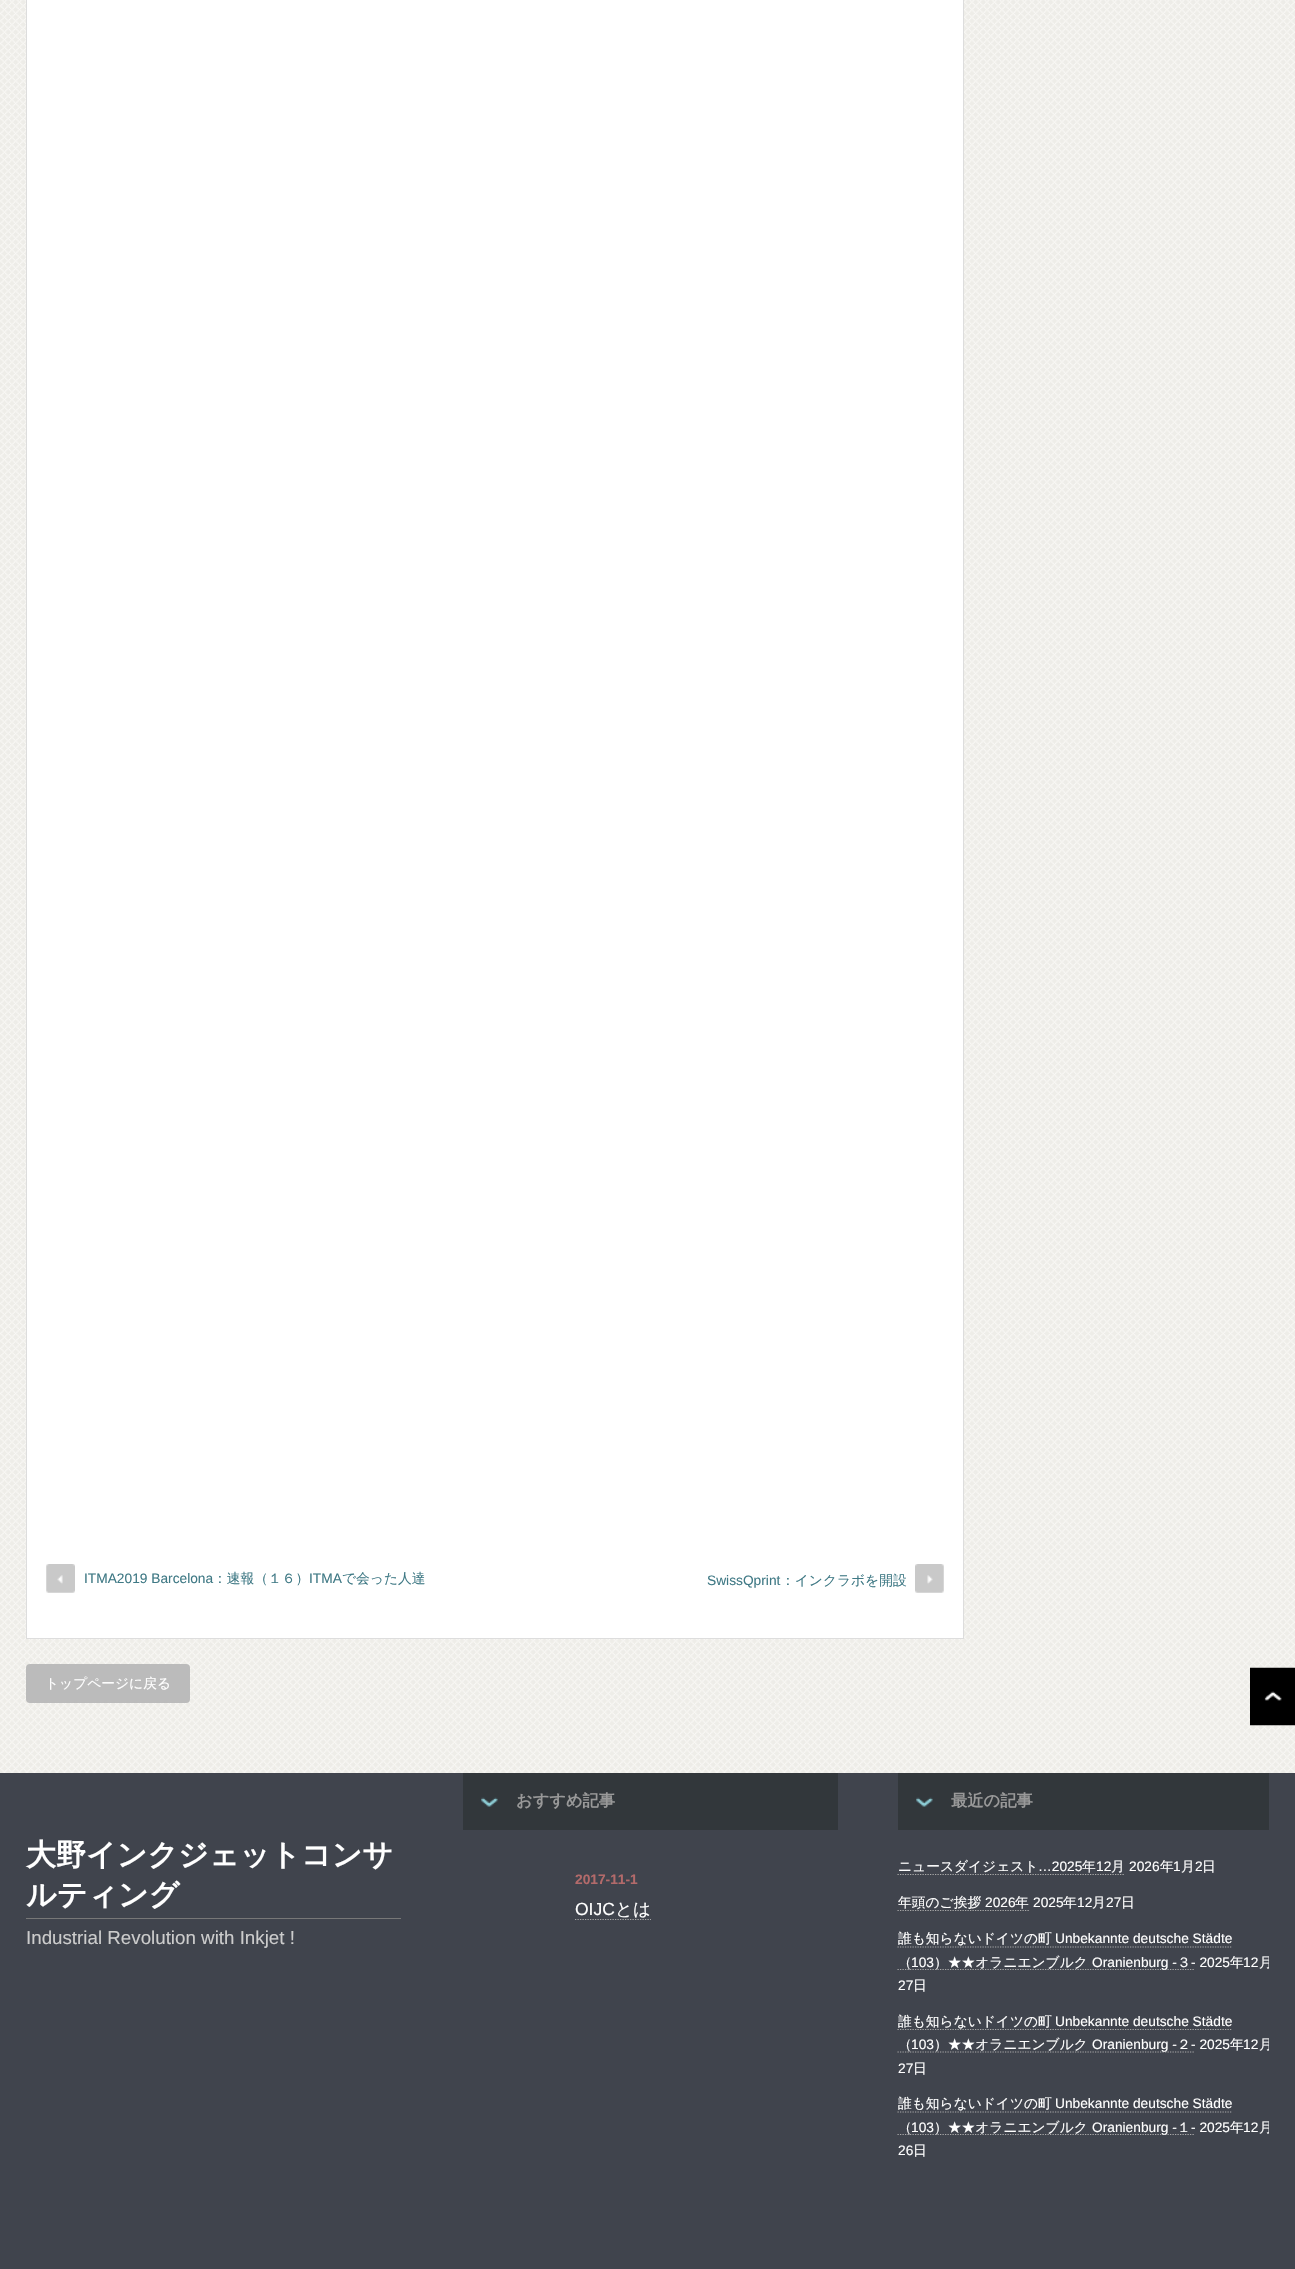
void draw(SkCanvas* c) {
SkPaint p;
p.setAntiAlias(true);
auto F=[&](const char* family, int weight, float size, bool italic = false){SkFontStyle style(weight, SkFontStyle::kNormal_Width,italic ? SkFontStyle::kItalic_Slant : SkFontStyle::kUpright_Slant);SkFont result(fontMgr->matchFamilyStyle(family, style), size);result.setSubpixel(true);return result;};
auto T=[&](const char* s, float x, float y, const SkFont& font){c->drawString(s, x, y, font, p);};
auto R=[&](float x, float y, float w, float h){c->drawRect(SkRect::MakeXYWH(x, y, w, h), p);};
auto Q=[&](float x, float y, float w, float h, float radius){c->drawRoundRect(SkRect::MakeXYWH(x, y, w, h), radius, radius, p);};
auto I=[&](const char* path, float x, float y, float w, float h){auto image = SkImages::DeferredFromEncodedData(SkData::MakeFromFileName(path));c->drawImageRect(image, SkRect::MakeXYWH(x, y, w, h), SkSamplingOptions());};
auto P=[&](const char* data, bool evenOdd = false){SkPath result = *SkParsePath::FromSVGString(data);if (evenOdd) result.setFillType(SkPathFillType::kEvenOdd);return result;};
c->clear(0xffffffff);
I("1.png",0,0,1295,1773);
p.setColor(0xffffffff);
c->drawRect(SkRect::MakeXYWH(26.5,-.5,937,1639),p);
p.setStroke(true);
p.setStrokeWidth(1);
p.setColor(0xffdddddd);
c->drawRect(SkRect::MakeXYWH(26.5,-.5,937,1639),p);
I("2.png",46,1564,29,29);
auto f1 = F("Liberation Sans",400,13.75);
p.setStroke(false);
p.setColor(0xff3f7985);
T("ITMA2019 Barcelona",84,1583,f1);
auto f2 = F("WenQuanYi Zen Hei",500,13.75);
T("：速報（１６）",213,1583,f2);
T("ITMA",309,1583,f1);
T("で会った人達",342,1583,f2);
I("3.png",915,1564,29,29);
T("SwissQprint",707,1585,f1);
T("：インクラボを開設",781,1585,f2);
p.setColor(0xffbbbbbb);
Q(26,1664,164,39,4);
p.setColor(0xffffffff);
T("トップページに戻る",45,1688,f2);
I("4.png",1250,1667,45,59);
p.setColor(0xff40444d);
R(0,1773,1295,496);
auto f3 = F("WenQuanYi Zen Hei",700,30);
p.setColor(0xffffffff);
T("大野インクジェットコンサ",26,1865,f3);
T("ルティング",26,1905,f3);
p.setColor(0xff777777);
R(26,1918,375,1);
auto f4 = F("Liberation Sans",400,18.75);
p.setColor(0xffcccccc);
T("Industrial Revolution with Inkjet !",26,1944,f4);
p.setColor(0xff32373b);
R(463,1773,375,57);
I("5.png",481,1797,17,10);
auto f5 = F("WenQuanYi Zen Hei",700,16.25);
p.setColor(0xff999999);
T("おすすめ記事",516,1806,f5);
auto f6 = F("Liberation Sans",700,13.75);
p.setColor(0xffb36a6a);
T("2017-11-1",575,1884,f6);
auto f7 = F("Liberation Sans",400,17.5);
p.setColor(0xffffffff);
T("OIJC",575,1915,f7);
auto f8 = F("WenQuanYi Zen Hei",500,17.5);
T("とは",615,1915,f8);
p.setStroke(true);
p.setStrokeWidth(1.2);
p.setColor(0xffaaaaaa);
p.setPathEffect(SkDashPathEffect::Make({{1.25f,1.25f}}, 0));
c->drawPath(P("M575 1919.5h76"),p);
p.setPathEffect(nullptr);
p.setStroke(false);
p.setColor(0xff32373b);
R(898,1773,371,57);
I("5.png",916,1797,17,10);
p.setColor(0xff999999);
T("最近の記事",951,1806,f5);
p.setStroke(true);
p.setColor(0xffaaaaaa);
p.setPathEffect(SkDashPathEffect::Make({{1.25f,1.25f}}, 0));
c->drawPath(P("M897.5 1874.5h227.5"),p);
p.setPathEffect(nullptr);
p.setStroke(false);
p.setColor(0xffffffff);
T("ニュースダイジェスト",898,1871,f2);
T("…2025",1038,1871,f1);
T("年",1082,1871,f2);
T("12",1096,1871,f1);
T("月",1111,1871,f2);
T("2026",1129,1871,f1);
T("年",1160,1871,f2);
T("1",1173,1871,f1);
T("月",1181,1871,f2);
T("2",1195,1871,f1);
T("日",1202,1871,f2);
p.setStroke(true);
p.setColor(0xffaaaaaa);
p.setPathEffect(SkDashPathEffect::Make({{1.25f,1.25f}}, 0));
c->drawPath(P("M897.5 1910.5h131.5"),p);
p.setPathEffect(nullptr);
p.setStroke(false);
p.setColor(0xffffffff);
T("年頭のご挨拶",898,1907,f2);
T("2026",985,1907,f1);
T("年",1015,1907,f2);
T("2025",1033,1907,f1);
T("年",1063,1907,f2);
T("12",1077,1907,f1);
T("月",1092,1907,f2);
T("27",1106,1907,f1);
T("日",1121,1907,f2);
T("誰も知らないドイツの町",898,1943,f2);
p.setStroke(true);
p.setColor(0xffaaaaaa);
p.setPathEffect(SkDashPathEffect::Make({{1.25f,1.25f}}, 0));
c->drawPath(P("M897.5 1947h335"),p);
p.setPathEffect(nullptr);
p.setStroke(false);
p.setColor(0xffffffff);
T("Unbekannte deutsche Städte",1055,1943,f1);
p.setStroke(true);
p.setColor(0xffaaaaaa);
p.setPathEffect(SkDashPathEffect::Make({{1.25f,1.25f}}, 0));
c->drawPath(P("M897.5 1969.5h297.5"),p);
p.setPathEffect(nullptr);
p.setStroke(false);
p.setColor(0xffffffff);
T("（",898,1967,f2);
T("103",911,1967,f1);
T("）★★オラニエンブルク",934,1967,f2);
T("Oranienburg -",1092,1967,f1);
T("３",1177,1967,f2);
T("- 2025",1191,1967,f1);
T("年",1230,1967,f2);
T("12",1243,1967,f1);
c->save();
c->clipRect(SkRect::MakeXYWH(463,1773,806,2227));
T("月",1259,1967,f2);
c->restore();
T("27",898,1990,f1);
T("日",913,1990,f2);
p.setStroke(true);
p.setColor(0xffaaaaaa);
p.setPathEffect(SkDashPathEffect::Make({{1.25f,1.25f}}, 0));
c->drawPath(P("M897.5 2029.5h335"),p);
p.setPathEffect(nullptr);
p.setStroke(false);
p.setColor(0xffffffff);
T("誰も知らないドイツの町",898,2026,f2);
T("Unbekannte deutsche Städte",1055,2026,f1);
p.setStroke(true);
p.setColor(0xffaaaaaa);
p.setPathEffect(SkDashPathEffect::Make({{1.25f,1.25f}}, 0));
c->drawPath(P("M897.5 2052h297.5"),p);
p.setPathEffect(nullptr);
p.setStroke(false);
p.setColor(0xffffffff);
T("（",898,2049,f2);
T("103",911,2049,f1);
T("）★★オラニエンブルク",934,2049,f2);
T("Oranienburg -",1092,2049,f1);
T("２",1177,2049,f2);
T("- 2025",1191,2049,f1);
T("年",1230,2049,f2);
T("12",1243,2049,f1);
c->save();
c->clipRect(SkRect::MakeXYWH(463,1773,806,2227));
T("月",1259,2049,f2);
c->restore();
T("27",898,2073,f1);
T("日",913,2073,f2);
T("誰も知らないドイツの町",898,2108,f2);
p.setStroke(true);
p.setColor(0xffaaaaaa);
p.setPathEffect(SkDashPathEffect::Make({{1.25f,1.25f}}, 0));
c->drawPath(P("M897.5 2112h335"),p);
p.setPathEffect(nullptr);
p.setStroke(false);
p.setColor(0xffffffff);
T("Unbekannte deutsche Städte",1055,2108,f1);
p.setStroke(true);
p.setColor(0xffaaaaaa);
p.setPathEffect(SkDashPathEffect::Make({{1.25f,1.25f}}, 0));
c->drawPath(P("M897.5 2134.5h297.5"),p);
p.setPathEffect(nullptr);
p.setStroke(false);
p.setColor(0xffffffff);
T("（",898,2132,f2);
T("103",911,2132,f1);
T("）★★オラニエンブルク",934,2132,f2);
T("Oranienburg -",1092,2132,f1);
T("１",1177,2132,f2);
T("- 2025",1191,2132,f1);
T("年",1230,2132,f2);
T("12",1243,2132,f1);
c->save();
c->clipRect(SkRect::MakeXYWH(463,1773,806,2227));
T("月",1259,2132,f2);
c->restore();
T("26",898,2155,f1);
T("日",913,2155,f2);
}
